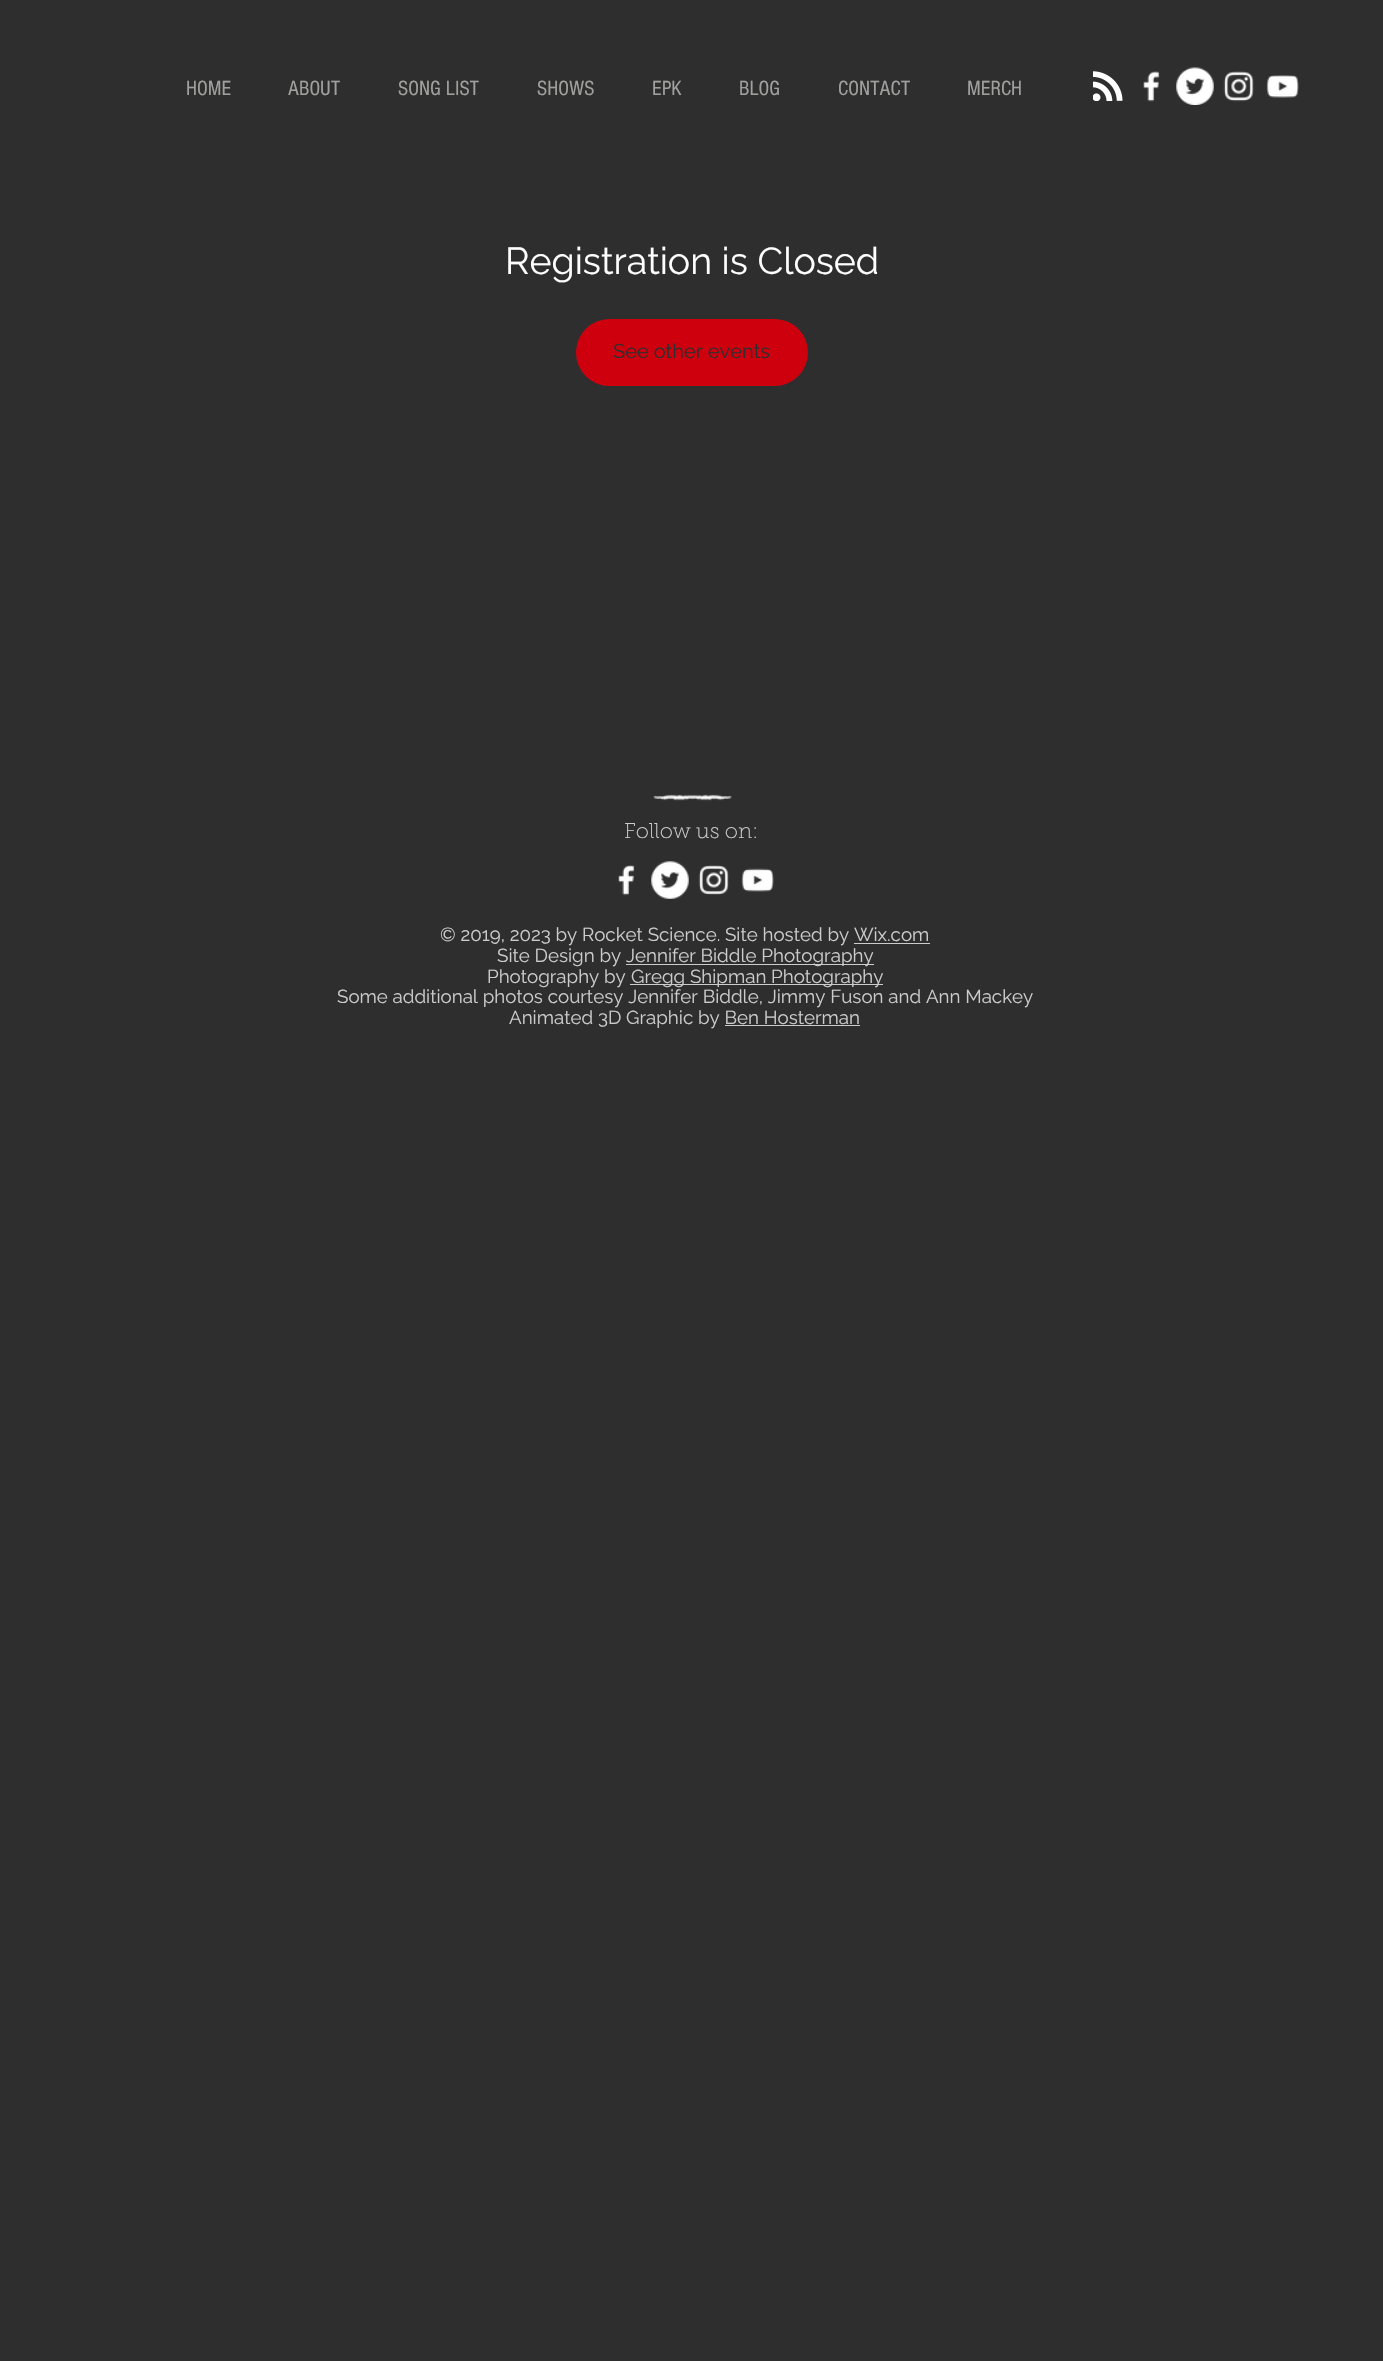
void draw(SkCanvas* c) {
SkPaint p;
p.setAntiAlias(true);
auto F=[&](const char* family, int weight, float size, bool italic = false){SkFontStyle style(weight, SkFontStyle::kNormal_Width,italic ? SkFontStyle::kItalic_Slant : SkFontStyle::kUpright_Slant);SkFont result(fontMgr->matchFamilyStyle(family, style), size);result.setSubpixel(true);return result;};
auto T=[&](const char* s, float x, float y, const SkFont& font){c->drawString(s, x, y, font, p);};
auto R=[&](float x, float y, float w, float h){c->drawRect(SkRect::MakeXYWH(x, y, w, h), p);};
auto Q=[&](float x, float y, float w, float h, float radius){c->drawRoundRect(SkRect::MakeXYWH(x, y, w, h), radius, radius, p);};
auto I=[&](const char* path, float x, float y, float w, float h){auto image = SkImages::DeferredFromEncodedData(SkData::MakeFromFileName(path));c->drawImageRect(image, SkRect::MakeXYWH(x, y, w, h), SkSamplingOptions());};
c->clear(0xff2f2e2e);
auto f1 = F("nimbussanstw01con",400,21.25);
p.setColor(0xffa0a09f);
T("HOME",186,95,f1);
T("ABOUT",288,95,f1);
T("SONG LIST",398,95,f1);
T("SHOWS",537,95,f1);
T("EPK",652,95,f1);
T("BLOG",739,95,f1);
T("CONTACT",838,95,f1);
T("MERCH",967,95,f1);
I("1.png",1093,71,30,30);
I("2.png",1143,71,17,31);
I("3.png",1176,67,38,38);
I("4.png",1223,71,31,31);
I("5.png",1266,75,33,23);
auto f2 = F("Raleway",400,37.5);
p.setColor(0xffffffff);
T("Registration is Closed",505,274,f2);
p.setColor(0xffcf000e);
Q(576,319,232,67,33.5);
auto f3 = F("Raleway",400,20);
p.setColor(0xff2f2e2e);
T("See other events",613,358,f3);
I("6.png",653,794,79,7);
auto f4 = F("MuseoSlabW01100",100,21.25);
p.setColor(0xffcccccc);
T("Follow us on:",624,838,f4);
I("7.png",618,865,17,31);
I("8.png",651,861,38,38);
I("9.png",698,865,31,30);
I("10.png",741,868,33,24);
auto f5 = F("Raleway",400,18.75);
T("© 2019, 2023 by Rocket Science. Site hosted by Wix.com",440,941,f5);
R(854,943,76,1);
T("Site Design by",497,962,f5);
R(626,964,248,1);
T("Jennifer Biddle Photography",626,962,f5);
T("Photography by",487,983,f5);
R(630,984,253,1);
T("Gregg Shipman Photography",631,983,f5);
T("Some additional photos courtesy Jennifer Biddle, Jimmy Fuson and Ann Mackey",337,1003,f5);
T("Animated 3D Graphic by Ben Hosterman",509,1024,f5);
R(725,1025,135,1);
}
